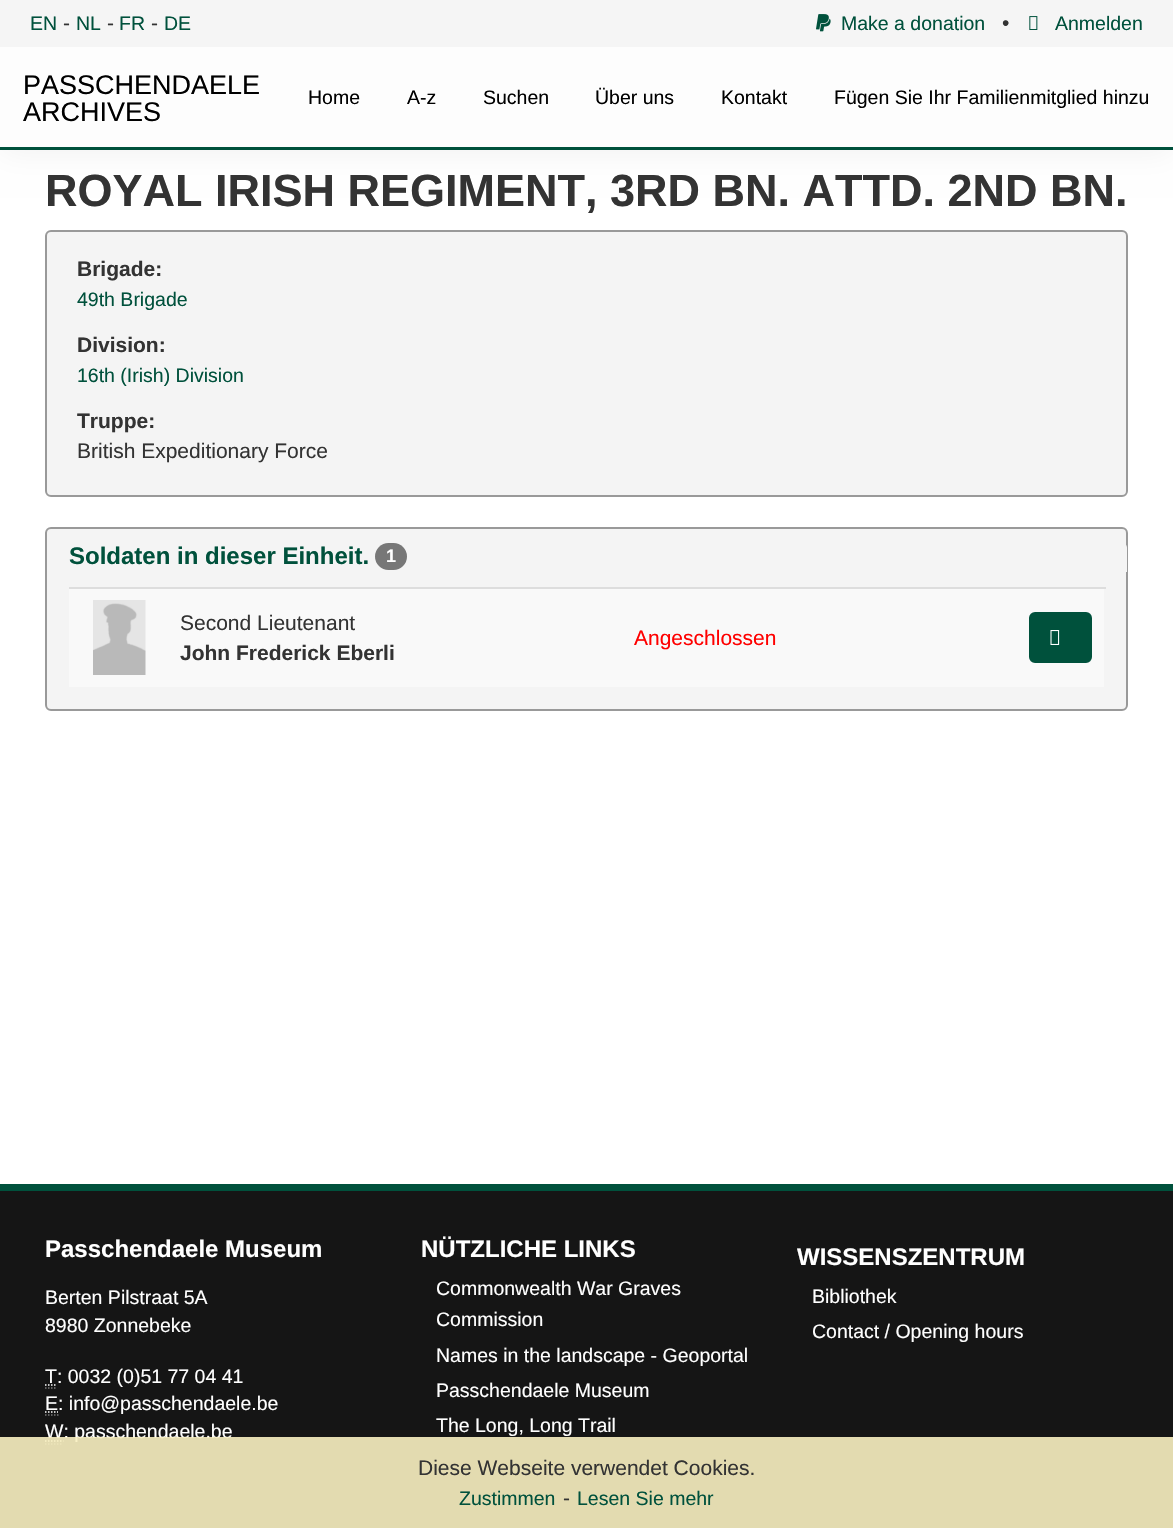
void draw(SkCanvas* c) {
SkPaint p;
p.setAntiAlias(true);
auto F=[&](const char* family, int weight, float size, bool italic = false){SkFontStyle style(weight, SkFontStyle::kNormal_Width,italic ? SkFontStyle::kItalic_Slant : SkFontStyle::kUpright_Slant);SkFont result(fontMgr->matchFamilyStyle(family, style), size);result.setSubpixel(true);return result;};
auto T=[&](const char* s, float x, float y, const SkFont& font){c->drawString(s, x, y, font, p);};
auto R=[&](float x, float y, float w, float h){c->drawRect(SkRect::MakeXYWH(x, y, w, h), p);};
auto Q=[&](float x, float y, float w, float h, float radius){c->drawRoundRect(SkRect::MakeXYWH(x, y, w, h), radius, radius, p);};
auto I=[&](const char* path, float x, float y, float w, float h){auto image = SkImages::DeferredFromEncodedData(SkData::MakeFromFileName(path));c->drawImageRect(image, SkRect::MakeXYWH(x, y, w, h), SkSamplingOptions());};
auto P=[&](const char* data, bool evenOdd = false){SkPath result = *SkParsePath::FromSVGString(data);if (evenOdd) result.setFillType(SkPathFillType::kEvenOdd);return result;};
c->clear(0xffffffff);
p.setColor(0x0d000000);
p.setMaskFilter(SkMaskFilter::MakeBlur(kNormal_SkBlurStyle, 15));
c->drawRect(SkRect::MakeXYWH(0,3,1173,150),p);
p.setMaskFilter(nullptr);
p.setColor(0xfffdfdfd);
R(0,47,1173,100);
p.setColor(0xff00513c);
R(0,147,1173,3);
p.setColor(0xfff5f5f5);
R(0,0,1173,47);
auto f1 = F("Liberation Sans",400,19.5);
p.setColor(0xff00513c);
T("EN",30,30,f1);
auto f2 = F("Liberation Sans",400,21);
p.setColor(0xff333333);
T("-",63,30,f2);
p.setColor(0xff00513c);
T("NL",76,30,f1);
p.setColor(0xff333333);
T("-",107,30,f2);
p.setColor(0xff00513c);
T("FR",119,30,f1);
p.setColor(0xff333333);
T("-",151,30,f2);
p.setColor(0xff00513c);
T("DE",164,30,f1);
I("1.png",816,14,15,18);
T("Make a donation",841,30,f1);
p.setColor(0xff333333);
T("•",1002,30,f2);
I("2.png",1029,16,9,14);
p.setColor(0xff00513c);
T("Anmelden",1055,30,f1);
auto f3 = F("Liberation Sans",400,27);
p.setColor(0xff000000);
T("PASSCHENDAELE",23,94,f3);
T("ARCHIVES",23,121,f3);
T("Home",308,104,f1);
T("A-z",407,104,f1);
T("Suchen",483,104,f1);
T("Über uns",595,104,f1);
T("Kontakt",721,104,f1);
T("Fügen Sie Ihr Familienmitglied hinzu",834,104,f1);
auto f4 = F("Liberation Sans",700,45);
p.setColor(0xff333333);
T("ROYAL IRISH REGIMENT, 3RD BN. ATTD. 2ND BN.",45,206,f4);
p.setColor(0xfff4f4f4);
c->drawRoundRect(SkRect::MakeXYWH(46,231,1081,265),5,5,p);
p.setStroke(true);
p.setStrokeWidth(2);
p.setColor(0xff999999);
c->drawRoundRect(SkRect::MakeXYWH(46,231,1081,265),5,5,p);
auto f5 = F("Liberation Sans",700,21);
p.setStroke(false);
p.setColor(0xff333333);
T("Brigade:",77,276,f5);
p.setColor(0xff00513c);
T("49th Brigade",77,306,f1);
p.setColor(0xff333333);
T("Division:",77,352,f5);
p.setColor(0xff00513c);
T("16th (Irish) Division",77,382,f1);
p.setColor(0xff333333);
T("Truppe:",77,428,f5);
T("British Expeditionary Force",77,458,f2);
p.setColor(0xfff4f4f4);
c->drawRoundRect(SkRect::MakeXYWH(46,528,1081,182),5,5,p);
p.setStroke(true);
p.setColor(0xff999999);
c->drawRoundRect(SkRect::MakeXYWH(46,528,1081,182),5,5,p);
p.setStroke(false);
p.setColor(0xfff4f4f4);
c->drawPath(P("M52 543h1070c3 0 5 2 5 5v24h-1080v-24c0-3 2-5 5-5z"),p);
auto f6 = F("Liberation Sans",700,24);
p.setColor(0xff00513c);
T("Soldaten in dieser Einheit.",69,564,f6);
p.setColor(0xff777777);
Q(375,543,32,27,13.5);
auto f7 = F("Liberation Sans",700,18);
p.setColor(0xffffffff);
T("1",386,562,f7);
p.setColor(0xfff9f9f9);
R(69,589,1035,98);
p.setColor(0xffdddddd);
R(69,587,1037,2);
p.setColor(0xff00513c);
c->drawRoundRect(SkRect::MakeXYWH(1030,613,61,49),5,5,p);
p.setStroke(true);
c->drawRoundRect(SkRect::MakeXYWH(1030,613,61,49),5,5,p);
I("3.png",1050,630,10,15);
I("4.png",93,600,53,75);
p.setStroke(false);
p.setColor(0xff333333);
T("Second Lieutenant",180,630,f2);
T("John Frederick Eberli",180,660,f5);
p.setColor(0xffff0000);
T("Angeschlossen",634,645,f2);
p.setColor(0xff151515);
R(0,1191,1173,337);
p.setStroke(true);
p.setStrokeWidth(1.5);
p.setColor(0xffffffff);
p.setPathEffect(SkDashPathEffect::Make({{1.5f,1.5f}}, 0));
c->drawPath(P("M45 1441h18.5"),p);
p.setPathEffect(nullptr);
p.setStroke(false);
T("W: passchendaele.be",45,1438,f1);
p.setStroke(true);
p.setColor(0xff777777);
p.setPathEffect(SkDashPathEffect::Make({{1.5f,1.5f}}, 0));
c->drawPath(P("M45 1444h18"),p);
p.setPathEffect(nullptr);
p.setStroke(false);
p.setColor(0xe6f8efc0);
R(0,1437,1173,91);
p.setColor(0xff333333);
T("Diese Webseite verwendet Cookies.",418,1475,f2);
p.setColor(0xff00513c);
T("Zustimmen",459,1505,f1);
p.setColor(0xff333333);
T("-",563,1505,f2);
p.setColor(0xff00513c);
T("Lesen Sie mehr",577,1505,f1);
R(0,1184,1173,7);
p.setColor(0xffffffff);
T("Passchendaele Museum",45,1257,f6);
T("Berten Pilstraat 5A",45,1304,f1);
T("8980 Zonnebeke",45,1332,f1);
p.setStroke(true);
p.setColor(0xff777777);
p.setPathEffect(SkDashPathEffect::Make({{1.5f,1.5f}}, 0));
c->drawPath(P("M45 1388h12"),p);
p.setPathEffect(nullptr);
p.setColor(0xffffffff);
p.setPathEffect(SkDashPathEffect::Make({{1.5f,1.5f}}, 0));
c->drawPath(P("M45 1385h12"),p);
p.setPathEffect(nullptr);
p.setStroke(false);
T("T: 0032 (0)51 77 04 41",45,1383,f1);
p.setStroke(true);
p.setColor(0xff777777);
p.setPathEffect(SkDashPathEffect::Make({{1.5f,1.5f}}, 0));
c->drawPath(P("M45 1415h13.5"),p);
p.setPathEffect(nullptr);
p.setColor(0xffffffff);
p.setPathEffect(SkDashPathEffect::Make({{1.5f,1.5f}}, 0));
c->drawPath(P("M45 1412h13"),p);
p.setPathEffect(nullptr);
p.setStroke(false);
T("E: info@passchendaele.be",45,1410,f1);
T("NÜTZLICHE LINKS",421,1257,f6);
T("Commonwealth War Graves",436,1295,f1);
T("Commission",436,1326,f1);
T("Names in the landscape - Geoportal",436,1362,f1);
T("Passchendaele Museum",436,1397,f1);
T("The Long, Long Trail",436,1432,f1);
T("WISSENSZENTRUM",797,1265,f6);
T("Bibliothek",812,1303,f1);
T("Contact / Opening hours",812,1338,f1);
}
